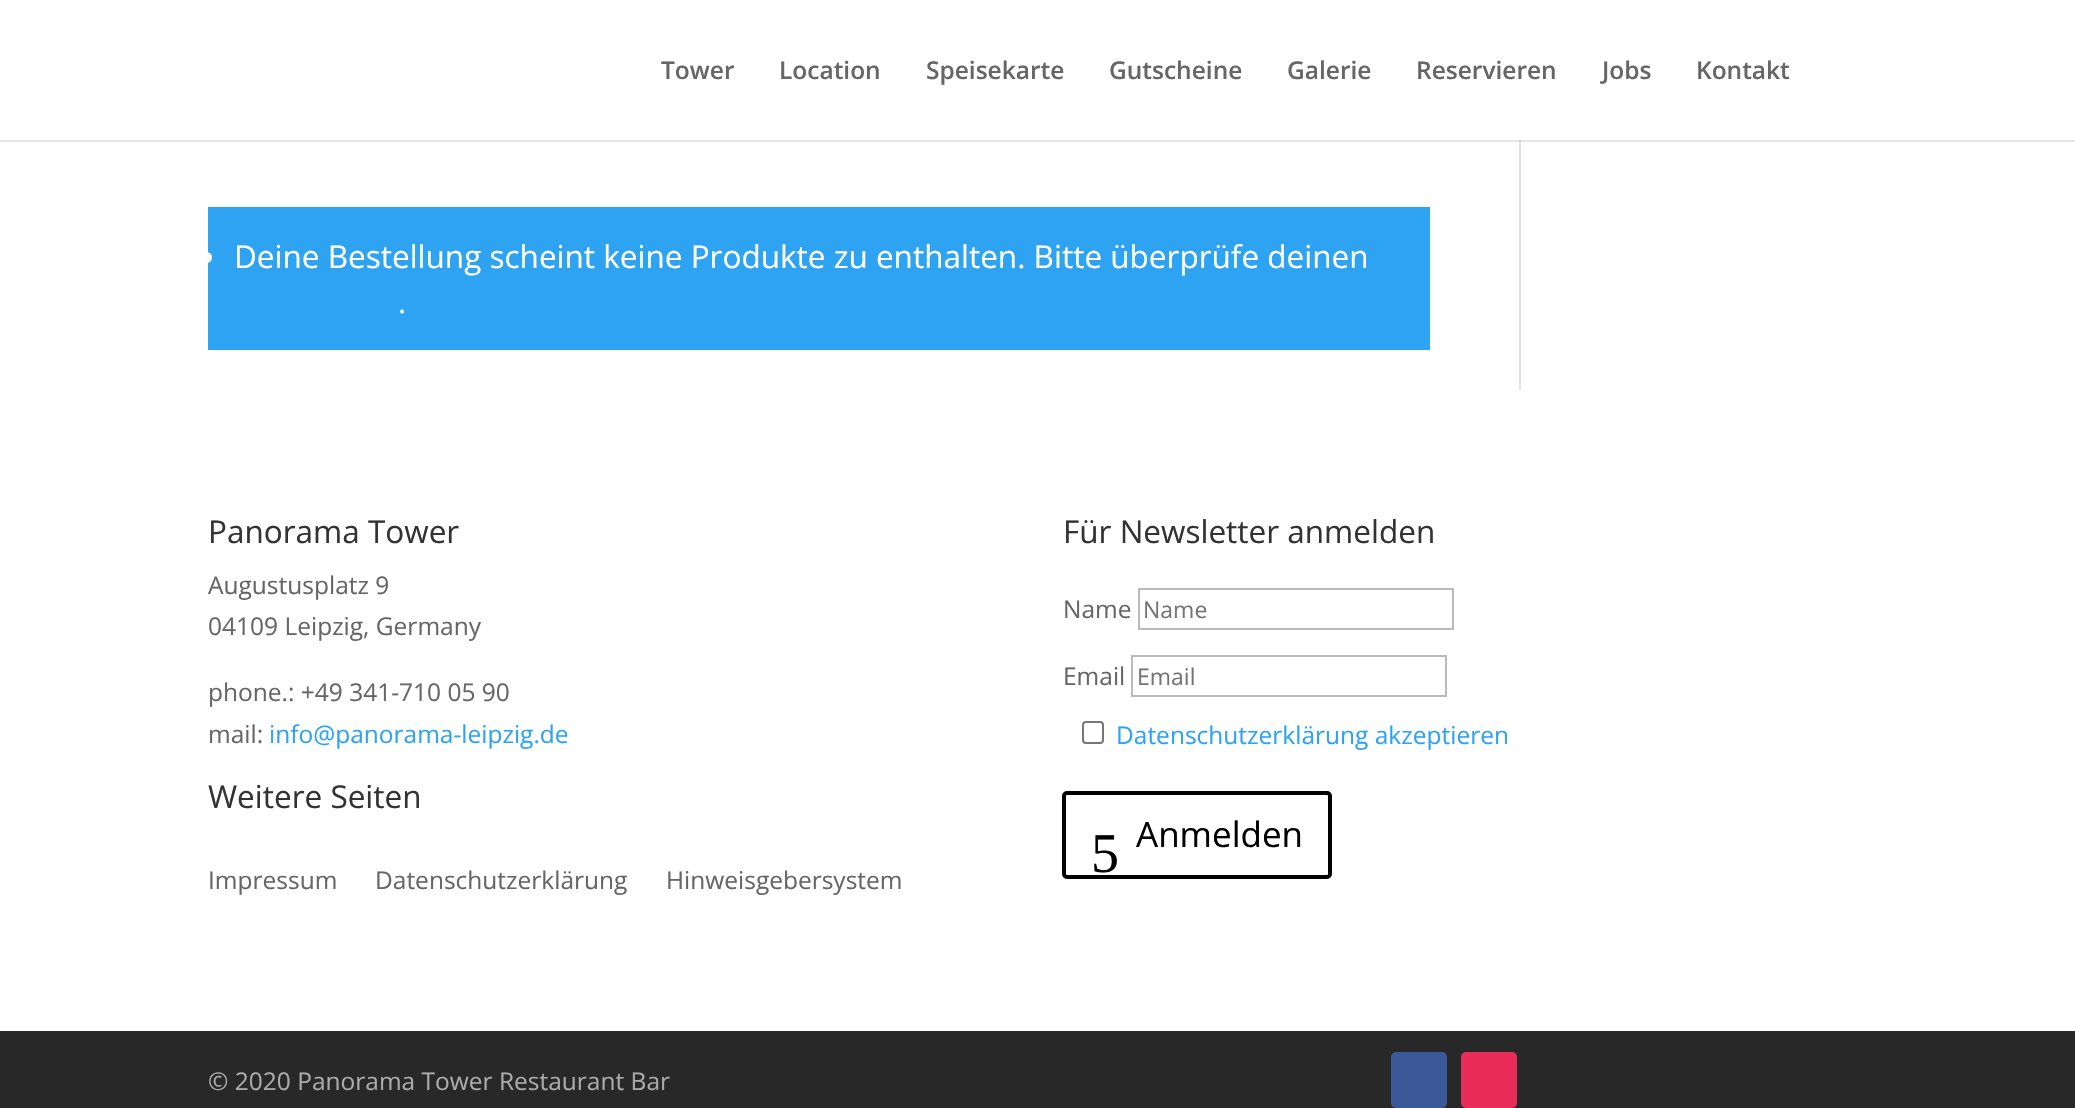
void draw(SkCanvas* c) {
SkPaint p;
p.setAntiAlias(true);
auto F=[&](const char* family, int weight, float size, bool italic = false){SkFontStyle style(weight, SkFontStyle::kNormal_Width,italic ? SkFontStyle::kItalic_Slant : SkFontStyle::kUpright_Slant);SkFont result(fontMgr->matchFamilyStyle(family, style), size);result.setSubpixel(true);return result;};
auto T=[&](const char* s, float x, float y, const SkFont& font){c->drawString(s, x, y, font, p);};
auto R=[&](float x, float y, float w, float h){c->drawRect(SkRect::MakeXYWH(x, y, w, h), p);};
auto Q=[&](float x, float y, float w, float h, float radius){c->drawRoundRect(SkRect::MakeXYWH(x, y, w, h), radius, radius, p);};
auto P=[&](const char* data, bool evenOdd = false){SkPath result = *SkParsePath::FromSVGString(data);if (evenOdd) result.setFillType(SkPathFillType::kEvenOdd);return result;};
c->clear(0xffffffff);
p.setColor(0xffe2e2e2);
R(1519,140,2,250);
p.setColor(0x1a000000);
c->drawPath(P("M0 140v2h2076v-140v138z"),p);
auto f1 = F("Open Sans",600,24.5);
p.setColor(0xff666666);
T("Tower",661,79,f1);
T("Location",779,79,f1);
T("Speisekarte",926,79,f1);
T("Gutscheine",1109,79,f1);
T("Galerie",1287,79,f1);
T("Reservieren",1416,79,f1);
T("Jobs",1602,79,f1);
T("Kontakt",1696,79,f1);
p.setColor(0xff2ea3f2);
R(208,207,1222,143);
p.setColor(0xffffffff);
c->drawCircle(206.5,257.5,5.5,p);
auto f2 = F("Open Sans",400,31.5);
T("Deine Bestellung scheint keine Produkte zu enthalten. Bitte überprüfe deinen",234,268,f2);
T(".",398,313,f2);
p.setColor(0xff333333);
T("Panorama Tower",208,543,f2);
auto f3 = F("Open Sans",400,24.5);
p.setColor(0xff666666);
T("Augustusplatz 9",208,594,f3);
T("04109 Leipzig, Germany",208,635,f3);
T("phone.: +49 341-710 05 90",208,701,f3);
T("mail:",208,743,f3);
p.setColor(0xff2ea3f2);
T("info@panorama-leipzig.de",269,743,f3);
p.setColor(0xff333333);
T("Weitere Seiten",208,808,f2);
p.setColor(0xff666666);
T("Impressum",208,889,f3);
T("Datenschutzerklärung",375,889,f3);
T("Hinweisgebersystem",666,889,f3);
p.setColor(0xff333333);
T("Für Newsletter anmelden",1063,543,f2);
p.setColor(0xff666666);
T("Name",1063,618,f3);
p.setStroke(true);
p.setStrokeWidth(2);
p.setColor(0xffbbbbbb);
c->drawRect(SkRect::MakeXYWH(1139,589,314,40),p);
auto f4 = F("Open Sans",400,23);
p.setStroke(false);
p.setColor(0xff757575);
T("Name",1143,618,f4);
p.setColor(0xff666666);
T("Email",1063,685,f3);
p.setStroke(true);
p.setColor(0xffbbbbbb);
c->drawRect(SkRect::MakeXYWH(1132,656,314,40),p);
p.setStroke(false);
p.setColor(0xff757575);
T("Email",1137,685,f4);
p.setStroke(true);
p.setColor(0xff767676);
c->drawRoundRect(SkRect::MakeXYWH(1083,722,20,21),3,3,p);
p.setStroke(false);
p.setColor(0xff2ea3f2);
T("Datenschutzerklärung akzeptieren",1116,744,f3);
p.setStroke(true);
p.setStrokeWidth(4);
p.setColor(0xff000000);
c->drawRoundRect(SkRect::MakeXYWH(1064,793,266,84),3,3,p);
auto f5 = F("Liberation Serif",400,56);
p.setStroke(false);
T("5",1091,872,f5);
auto f6 = F("Open Sans",400,35);
T("Anmelden",1136,847,f6);
p.setColor(0xff282828);
R(0,1031,2075,77);
p.setColor(0xffaaaaaa);
T("© 2020 Panorama Tower Restaurant Bar",208,1090,f3);
p.setColor(0xff3b5998);
Q(1391,1052,56,56,5);
p.setColor(0xffea2c59);
Q(1461,1052,56,56,5);
}
